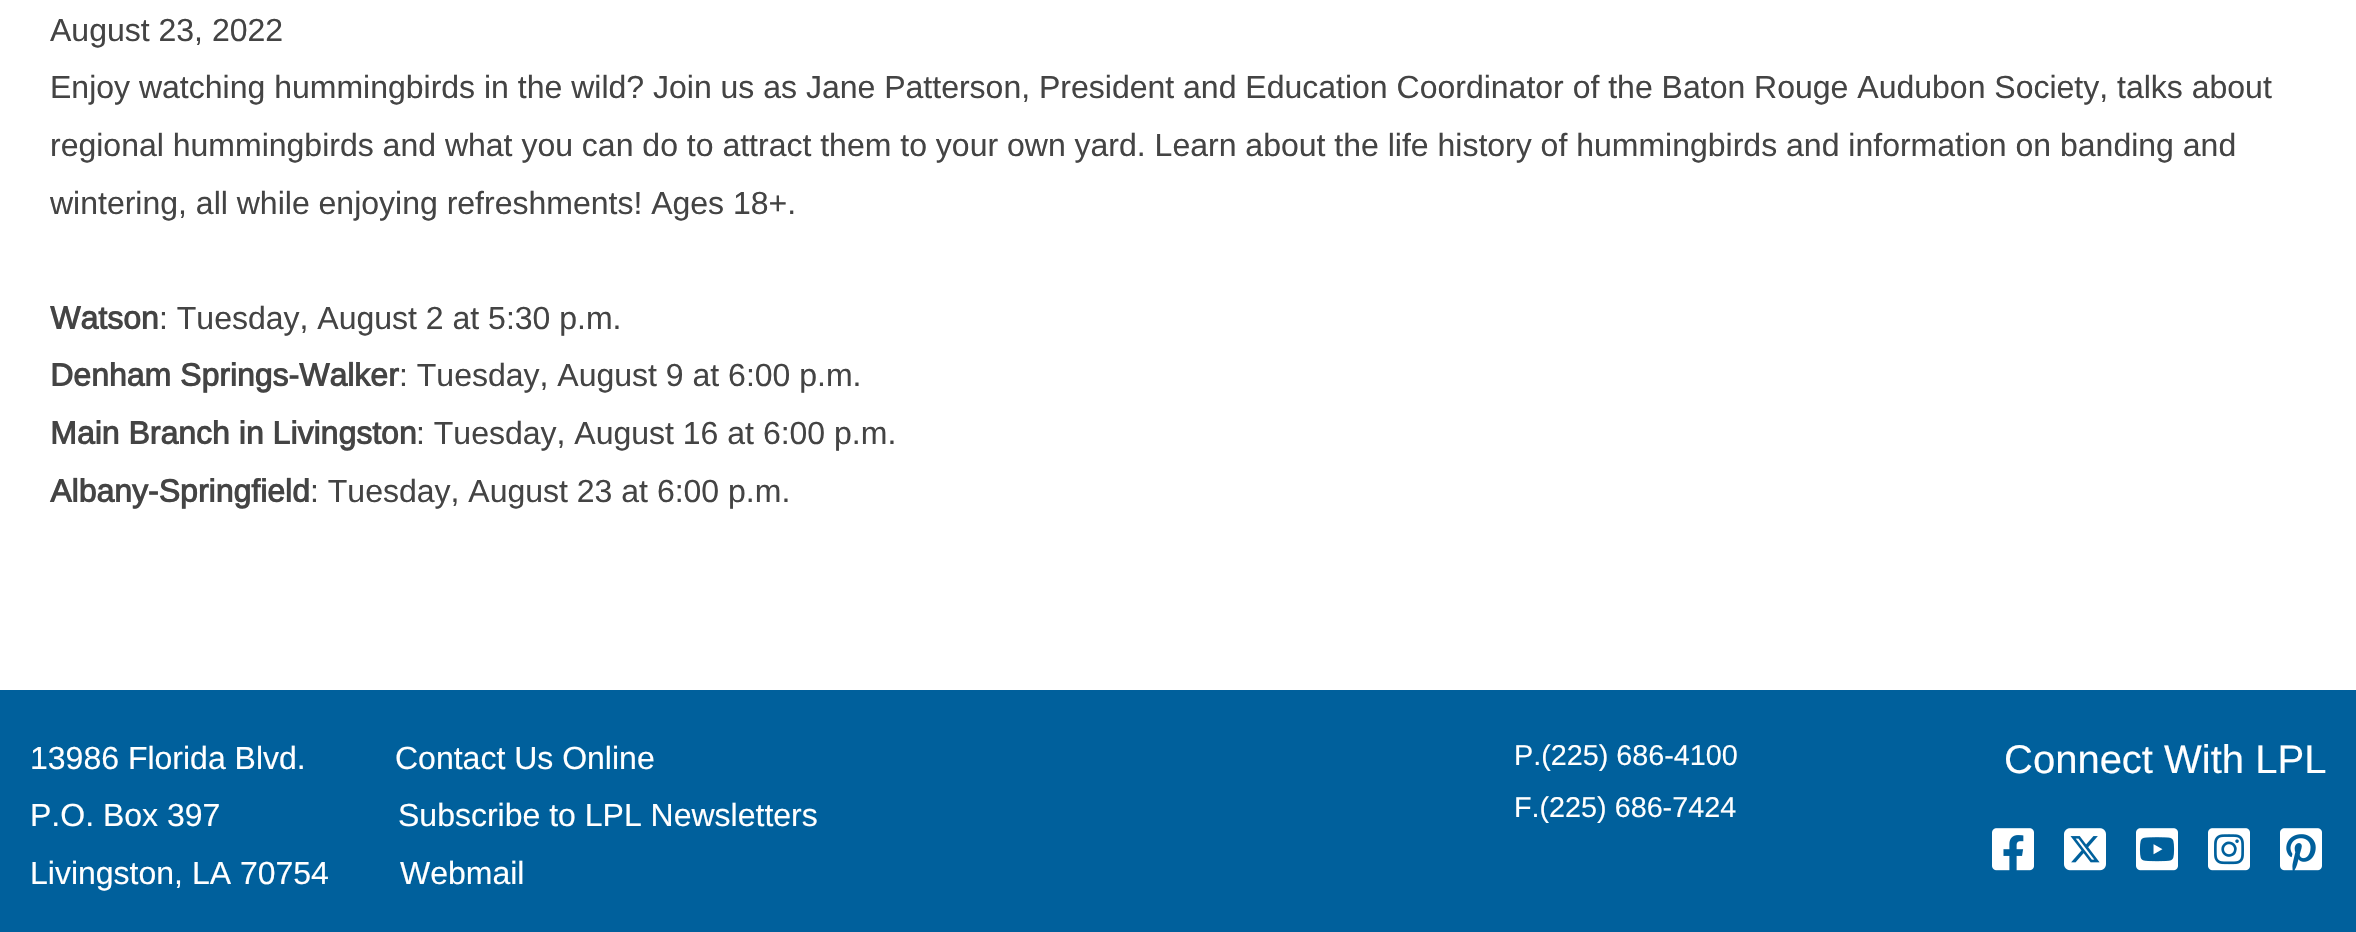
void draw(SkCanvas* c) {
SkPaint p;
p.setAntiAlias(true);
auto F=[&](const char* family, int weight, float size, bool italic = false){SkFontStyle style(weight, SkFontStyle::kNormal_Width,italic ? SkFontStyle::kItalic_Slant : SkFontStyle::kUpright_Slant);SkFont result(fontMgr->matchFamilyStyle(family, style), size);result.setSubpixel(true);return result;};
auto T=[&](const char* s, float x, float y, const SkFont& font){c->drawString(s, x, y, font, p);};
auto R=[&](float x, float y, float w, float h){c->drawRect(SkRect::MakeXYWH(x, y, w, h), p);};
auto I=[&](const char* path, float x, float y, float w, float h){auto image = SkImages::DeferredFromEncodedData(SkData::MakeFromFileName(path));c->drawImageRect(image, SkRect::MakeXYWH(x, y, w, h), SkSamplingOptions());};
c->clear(0xff00609c);
p.setColor(0xffffffff);
R(0,0,2356,690);
auto f1 = F("Arimo",400,32);
p.setColor(0xff444444);
T("August 23, 2022",50,41,f1);
T("Enjoy watching hummingbirds in the wild? Join us as Jane Patterson, President and Education Coordinator of the Baton Rouge Audubon Society, talks about",50,98,f1);
T("regional hummingbirds and what you can do to attract them to your own yard. Learn about the life history of hummingbirds and information on banding and",50,156,f1);
T("wintering, all while enjoying refreshments! Ages 18+.",50,214,f1);
auto f2 = F("Arimo",700,32);
T("Watson",50,329,f2);
T(": Tuesday, August 2 at 5:30 p.m.",159,329,f1);
T("Denham Springs-Walker",50,386,f2);
T(": Tuesday, August 9 at 6:00 p.m.",399,386,f1);
T("Main Branch in Livingston",50,444,f2);
T(": Tuesday, August 16 at 6:00 p.m.",416,444,f1);
T("Albany-Springfield",50,502,f2);
T(": Tuesday, August 23 at 6:00 p.m.",310,502,f1);
p.setColor(0xffffffff);
T("13986 Florida Blvd.",30,769,f1);
T("Contact Us Online",395,769,f1);
T("P.O. Box 397",30,826,f1);
T("Subscribe to LPL Newsletters",398,826,f1);
T("Livingston, LA 70754",30,884,f1);
T("Webmail",400,884,f1);
auto f3 = F("Arimo",400,28.75);
T("P.(225) 686-4100",1514,765,f3);
T("F.(225) 686-7424",1514,817,f3);
auto f4 = F("Arimo",400,40);
T("Connect With LPL",2004,773,f4);
I("1.png",1992,828,42,43);
I("2.png",2064,828,42,43);
I("3.png",2136,828,42,43);
I("4.png",2208,828,42,43);
I("5.png",2280,828,42,43);
}
